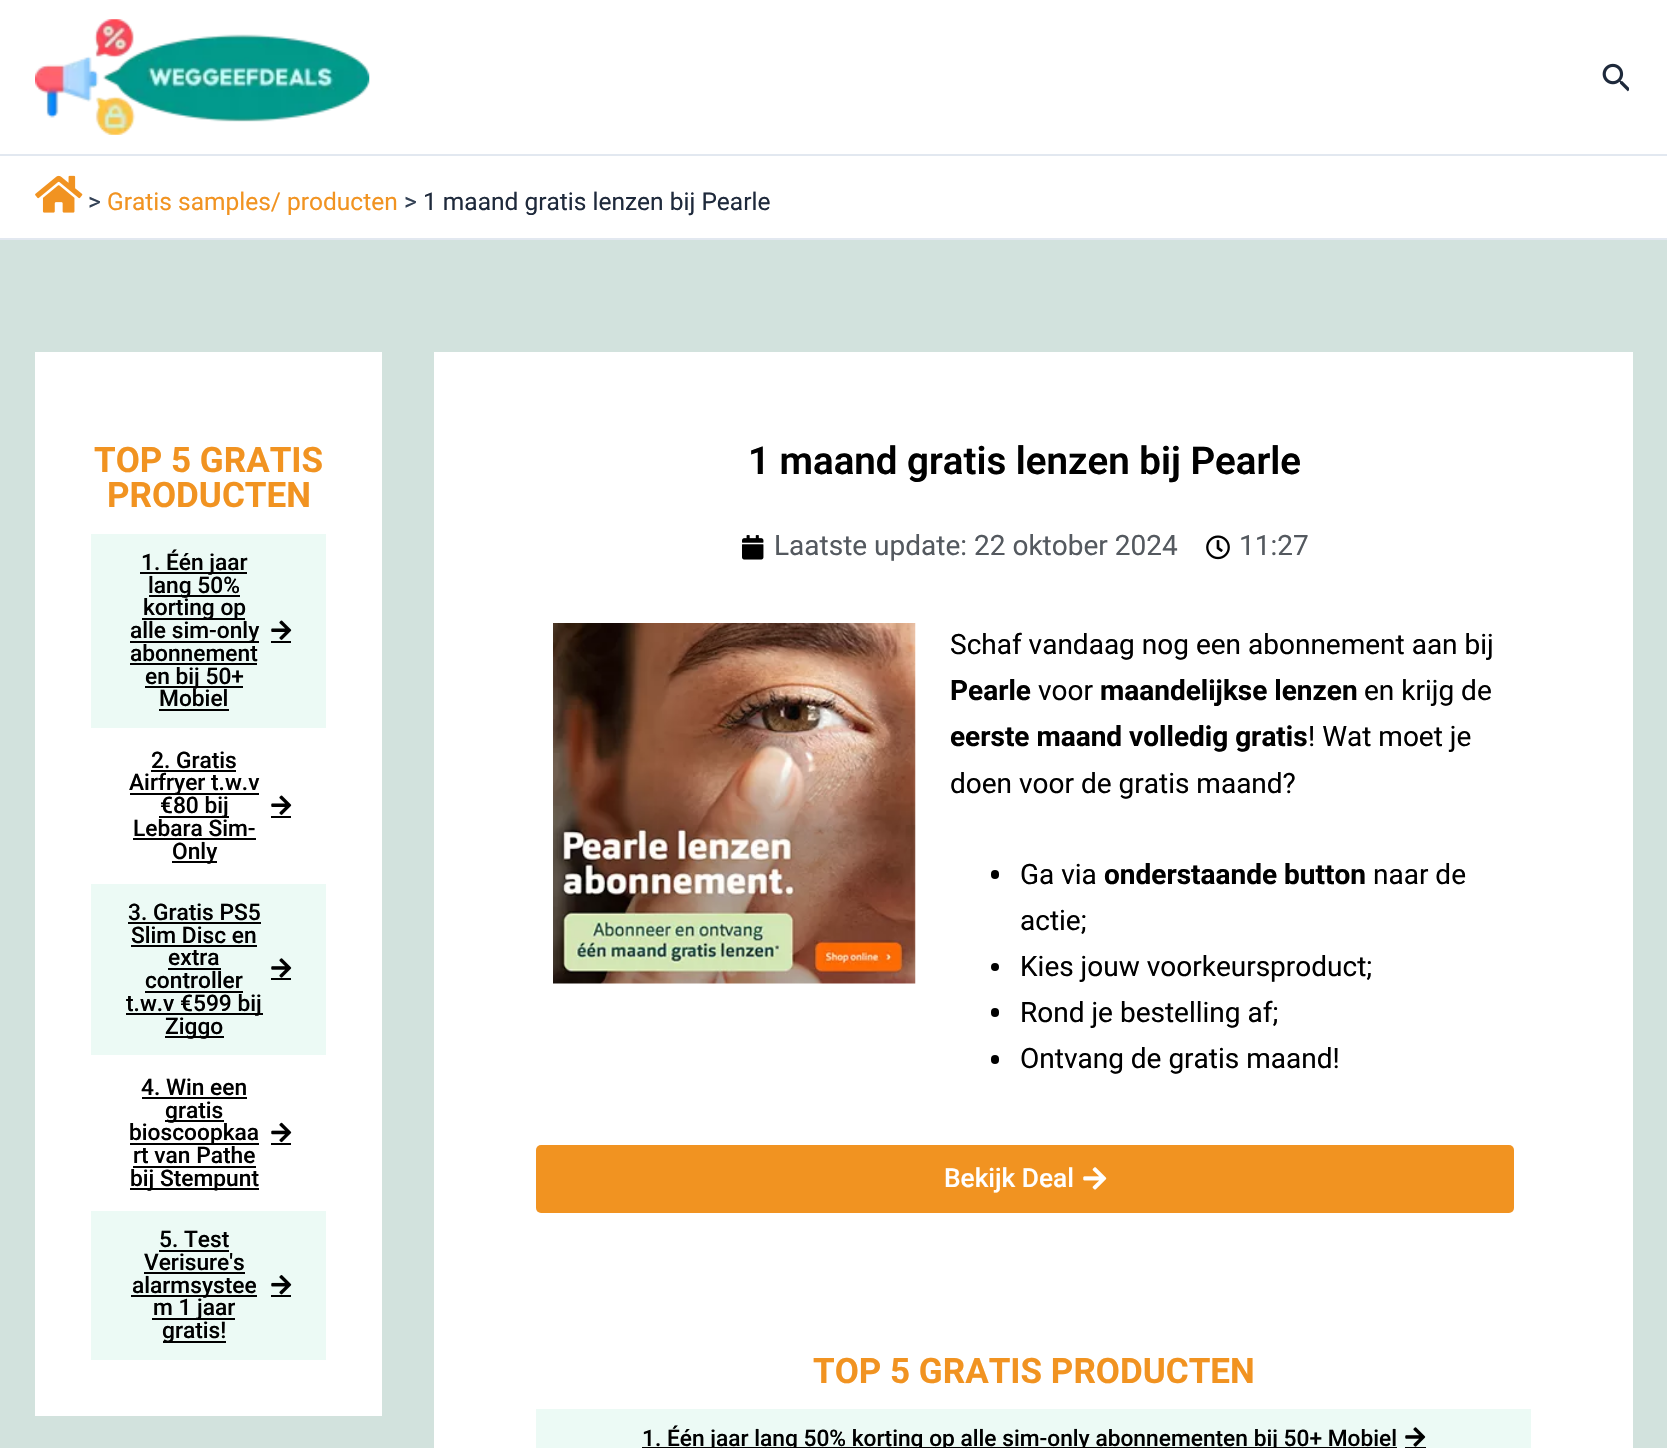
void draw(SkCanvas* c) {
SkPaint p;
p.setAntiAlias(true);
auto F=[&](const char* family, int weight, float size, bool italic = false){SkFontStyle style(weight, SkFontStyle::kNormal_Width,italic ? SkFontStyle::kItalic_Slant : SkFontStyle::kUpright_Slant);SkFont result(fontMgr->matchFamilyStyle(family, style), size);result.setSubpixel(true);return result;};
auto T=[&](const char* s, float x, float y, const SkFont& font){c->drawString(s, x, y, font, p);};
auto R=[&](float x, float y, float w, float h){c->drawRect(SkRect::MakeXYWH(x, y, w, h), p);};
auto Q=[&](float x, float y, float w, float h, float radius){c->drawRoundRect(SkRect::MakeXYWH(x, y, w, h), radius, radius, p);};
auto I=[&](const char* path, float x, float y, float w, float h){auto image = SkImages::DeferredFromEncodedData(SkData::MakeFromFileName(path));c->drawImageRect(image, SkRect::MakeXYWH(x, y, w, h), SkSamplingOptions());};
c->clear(0xffd2e2dd);
p.setColor(0xffffffff);
R(0,0,1667,154);
p.setColor(0xffe2e8f0);
R(0,154,1667,2);
I("1.png",35,19,335,116);
I("2.png",1602,63,27,29);
p.setColor(0xffffffff);
R(0,156,1667,82);
p.setColor(0xffe2e8f0);
R(0,238,1667,2);
I("3.png",35,175,48,38);
auto f1 = F("Roboto",400,24.5);
p.setColor(0xff334155);
T(">",88,210,f1);
p.setColor(0xfff19321);
T("Gratis samples/ producten",107,210,f1);
p.setColor(0xff334155);
T(">",404,210,f1);
p.setColor(0xff1e293b);
T("1 maand gratis lenzen bij Pearle",423,210,f1);
p.setColor(0xffffffff);
R(35,352,347,1064);
auto f2 = F("Roboto",700,35);
p.setColor(0xfff19321);
T("TOP 5 GRATIS",94,472,f2);
T("PRODUCTEN",107,507,f2);
p.setColor(0xffecfaf5);
R(91,534,235,194);
p.setColor(0xff000000);
R(140,572,107,2);
auto f3 = F("Roboto",500,22.75);
T("1. Één jaar",141,570,f3);
R(149,595,91,2);
T("lang 50%",148,593,f3);
R(142,618,103,2);
T("korting op",143,615,f3);
R(130,641,129,2);
T("alle sim-only",130,638,f3);
T("abonnement",130,661,f3);
R(130,663,127,2);
R(145,686,98,2);
T("en bij 50+",145,684,f3);
T("Mobiel",159,706,f3);
R(159,709,70,2);
I("4.png",271,620,21,20);
R(271,641,20,2);
T("2. Gratis",151,768,f3);
R(151,770,85,2);
R(130,793,129,2);
T("Airfryer t.w.v",129,790,f3);
R(159,816,70,2);
T("€80 bij",160,813,f3);
T("Lebara Sim-",133,836,f3);
R(133,838,123,2);
R(172,861,45,2);
T("Only",172,859,f3);
I("5.png",271,795,21,20);
R(271,816,20,2);
p.setColor(0xffecfaf5);
R(91,884,235,171);
p.setColor(0xff000000);
T("3. Gratis PS5",128,920,f3);
R(128,922,133,2);
T("Slim Disc en",131,943,f3);
R(131,945,126,2);
T("extra",168,965,f3);
T("controller",145,988,f3);
R(168,968,53,2);
R(145,991,98,2);
R(126,1013,137,2);
T("t.w.v €599 bij",126,1011,f3);
R(165,1036,59,2);
T("Ziggo",165,1034,f3);
I("6.png",271,958,21,20);
R(271,978,20,2);
T("4. Win een",141,1095,f3);
R(142,1097,105,2);
R(165,1120,59,2);
T("gratis",165,1118,f3);
R(130,1143,129,2);
T("bioscoopkaa",129,1140,f3);
T("rt van Pathe",133,1163,f3);
R(133,1166,123,2);
R(130,1188,129,2);
T("bij Stempunt",130,1186,f3);
I("7.png",271,1122,21,21);
R(271,1143,20,2);
p.setColor(0xffecfaf5);
R(91,1211,235,149);
p.setColor(0xff000000);
T("5. Test",159,1247,f3);
T("Verisure's",144,1270,f3);
R(159,1250,70,2);
R(144,1272,101,2);
R(131,1295,126,2);
T("alarmsystee",132,1293,f3);
R(152,1318,83,2);
T("m 1 jaar",153,1315,f3);
R(163,1341,63,2);
T("gratis!",162,1338,f3);
I("8.png",271,1275,21,20);
R(271,1295,20,2);
p.setColor(0xffffffff);
R(434,352,1199,1096);
auto f4 = F("Roboto",600,38.5);
p.setColor(0xff000000);
T("1 maand gratis lenzen bij Pearle",748,474,f4);
I("9.png",742,535,22,25);
auto f5 = F("Roboto",400,28);
p.setColor(0xff54595f);
T("Laatste update: 22 oktober 2024",774,555,f5);
I("10.png",1206,535,24,25);
T("11:27",1239,555,f5);
I("11.png",553,623,363,361);
p.setColor(0xff000000);
T("Schaf vandaag nog een abonnement aan bij",950,654,f5);
auto f6 = F("Roboto",700,28);
T("Pearle",950,700,f6);
T("voor",1038,700,f5);
T("maandelijkse lenzen",1100,700,f6);
T("en krijg de",1364,700,f5);
T("eerste maand volledig gratis",950,746,f6);
T("! Wat moet je",1308,746,f5);
T("doen voor de gratis maand?",950,793,f5);
Q(991,870,8,9,4);
T("Ga via",1020,884,f5);
T("onderstaande button",1104,884,f6);
T("naar de",1373,884,f5);
T("actie;",1020,930,f5);
c->drawCircle(995,967,4,p);
T("Kies jouw voorkeursproduct;",1020,976,f5);
Q(991,1008,8,9,4);
T("Rond je bestelling af;",1020,1022,f5);
Q(991,1055,8,9,4);
T("Ontvang de gratis maand!",1020,1068,f5);
p.setColor(0xfff19321);
Q(536,1145,978,68,5);
auto f7 = F("Roboto",500,26.25);
p.setColor(0xffffffff);
T("Bekijk Deal",944,1187,f7);
I("12.png",1083,1167,24,23);
p.setColor(0xfff19321);
T("TOP 5 GRATIS PRODUCTEN",813,1383,f2);
p.setColor(0xffecfaf5);
R(536,1409,995,39);
p.setColor(0xff000000);
R(642,1447,755,1);
T("1. Één jaar lang 50% korting op alle sim-only abonnementen bij 50+ Mobiel",642,1446,f3);
I("6.png",1405,1427,21,20);
R(1405,1447,21,1);
}
